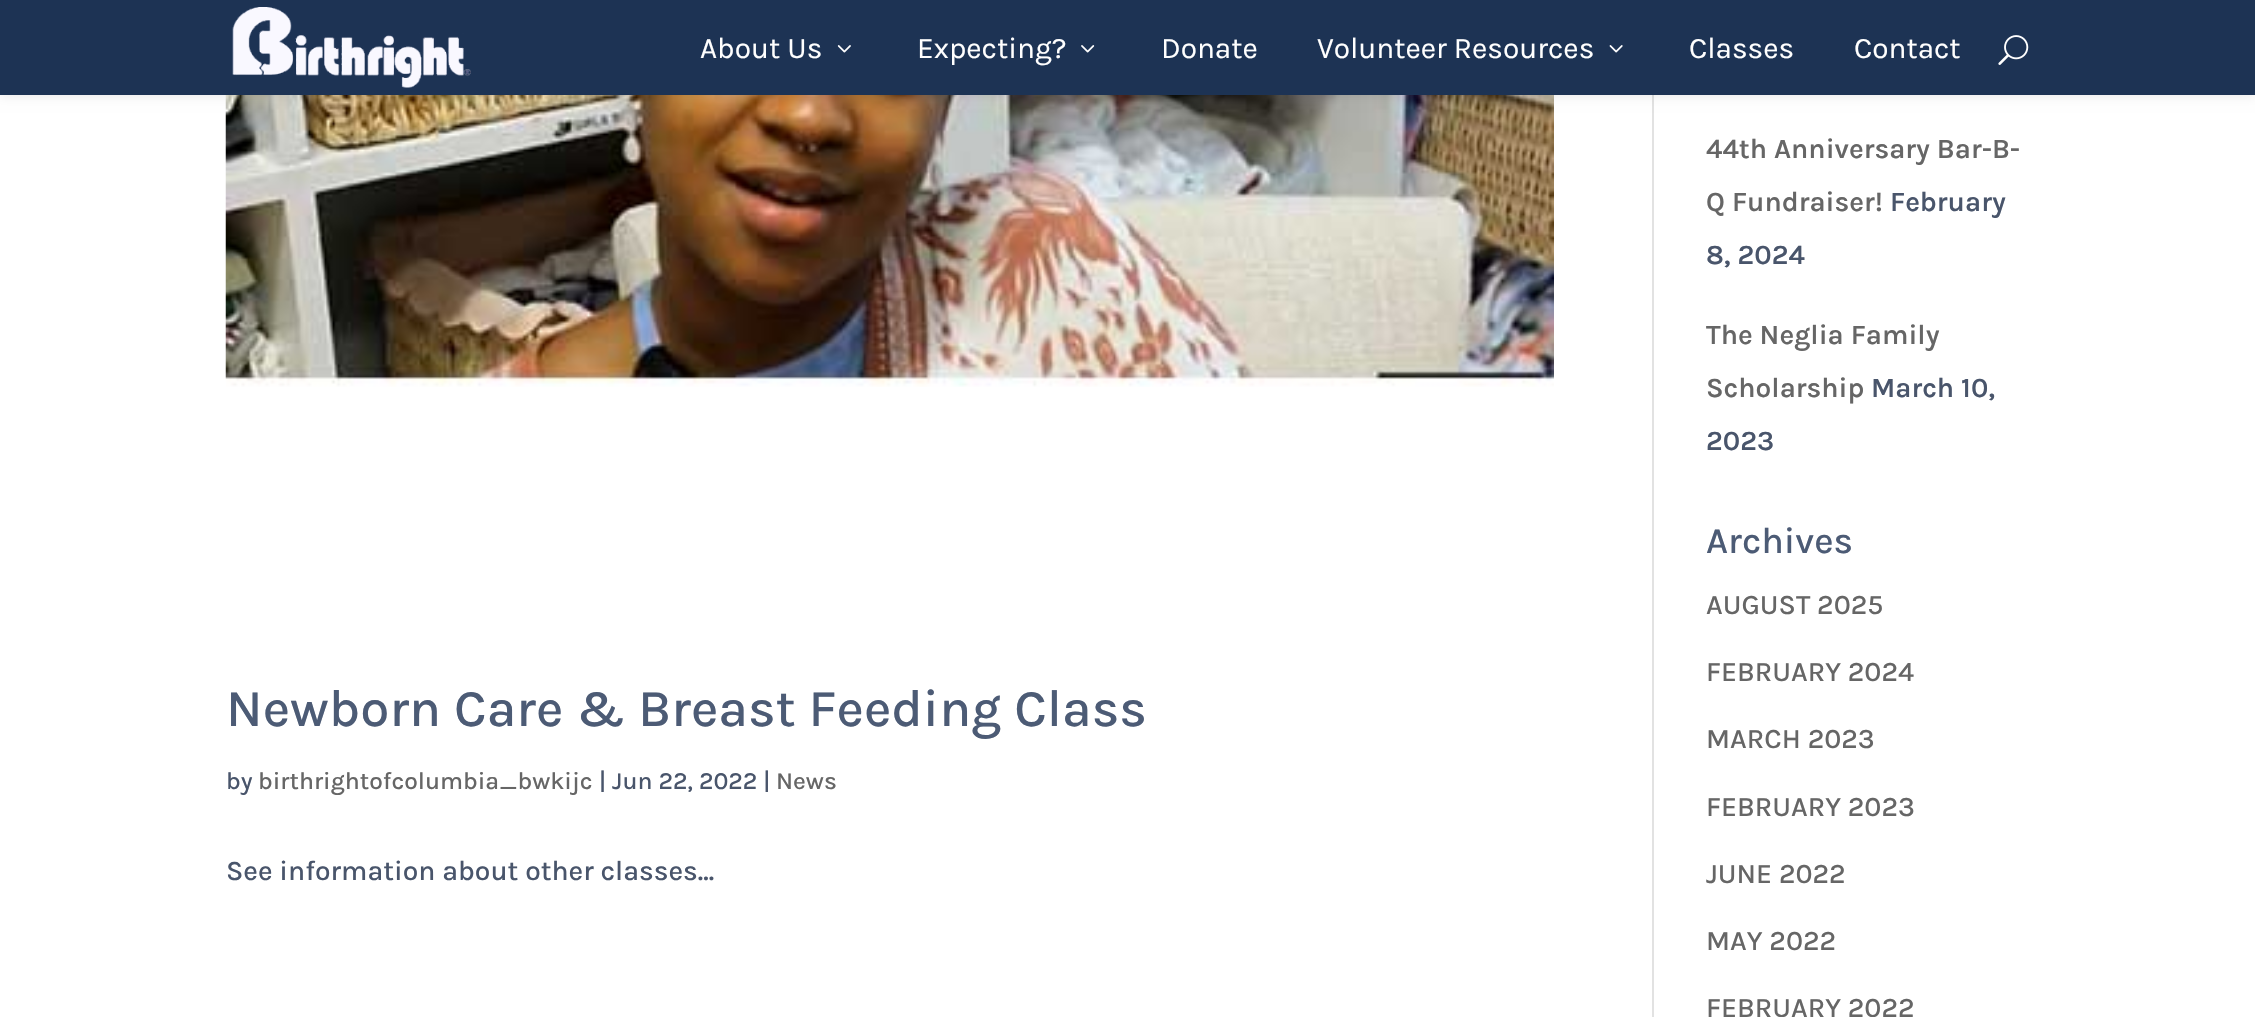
void draw(SkCanvas* c) {
SkPaint p;
p.setAntiAlias(true);
auto F=[&](const char* family, int weight, float size, bool italic = false){SkFontStyle style(weight, SkFontStyle::kNormal_Width,italic ? SkFontStyle::kItalic_Slant : SkFontStyle::kUpright_Slant);SkFont result(fontMgr->matchFamilyStyle(family, style), size);result.setSubpixel(true);return result;};
auto T=[&](const char* s, float x, float y, const SkFont& font){c->drawString(s, x, y, font, p);};
auto R=[&](float x, float y, float w, float h){c->drawRect(SkRect::MakeXYWH(x, y, w, h), p);};
auto I=[&](const char* path, float x, float y, float w, float h){auto image = SkImages::DeferredFromEncodedData(SkData::MakeFromFileName(path));c->drawImageRect(image, SkRect::MakeXYWH(x, y, w, h), SkSamplingOptions());};
c->clear(0xffffffff);
p.setColor(0xffe2e2e2);
R(1652,95,2,922);
I("6.png",225,95,1329,292);
p.setColor(0x1a000000);
p.setMaskFilter(SkMaskFilter::MakeBlur(kNormal_SkBlurStyle, 6));
c->drawRect(SkRect::MakeXYWH(0,0,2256,95),p);
p.setMaskFilter(nullptr);
p.setColor(0xff1d3354);
R(0,0,2255,95);
I("1.png",232,7,239,81);
auto f1 = F("Karla",400,29.75);
p.setColor(0xffffffff);
T("About Us",700,58,f1);
I("2.png",837,45,14,8);
T("Expecting?",917,58,f1);
I("3.png",1081,45,14,8);
T("Donate",1161,58,f1);
T("Volunteer Resources",1317,58,f1);
I("4.png",1609,45,14,8);
T("Classes",1689,58,f1);
T("Contact",1854,58,f1);
I("5.png",1998,35,31,30);
auto f2 = F("Karla",500,52.5);
p.setColor(0xff4c5b75);
T("Newborn Care & Breast Feeding Class",226,726,f2);
auto f3 = F("Karla",500,24.5);
p.setColor(0xff49556b);
T("by",226,789,f3);
p.setColor(0xff666666);
T("birthrightofcolumbia_bwkijc",258,789,f3);
p.setColor(0xff49556b);
T("| Jun 22, 2022 |",599,789,f3);
p.setColor(0xff666666);
T("News",776,789,f3);
auto f4 = F("Karla",500,28);
p.setColor(0xff49556b);
T("See information about other classes...",226,880,f4);
auto f5 = F("Karla",600,28);
p.setColor(0xff666666);
T("44th Anniversary Bar-B-",1706,158,f5);
T("Q Fundraiser!",1706,211,f5);
p.setColor(0xff49556b);
T("February",1890,211,f5);
T("8, 2024",1706,264,f5);
p.setColor(0xff666666);
T("The Neglia Family",1706,344,f5);
T("Scholarship",1706,397,f5);
p.setColor(0xff49556b);
T("March 10,",1871,397,f5);
T("2023",1706,450,f5);
auto f6 = F("Karla",500,37);
p.setColor(0xff4c5b75);
T("Archives",1706,553,f6);
p.setColor(0xff666666);
T("AUGUST 2025",1706,614,f4);
T("FEBRUARY 2024",1706,681,f4);
T("MARCH 2023",1706,748,f4);
T("FEBRUARY 2023",1706,816,f4);
T("JUNE 2022",1706,883,f4);
T("MAY 2022",1706,950,f4);
T("FEBRUARY 2022",1706,1017,f4);
}
